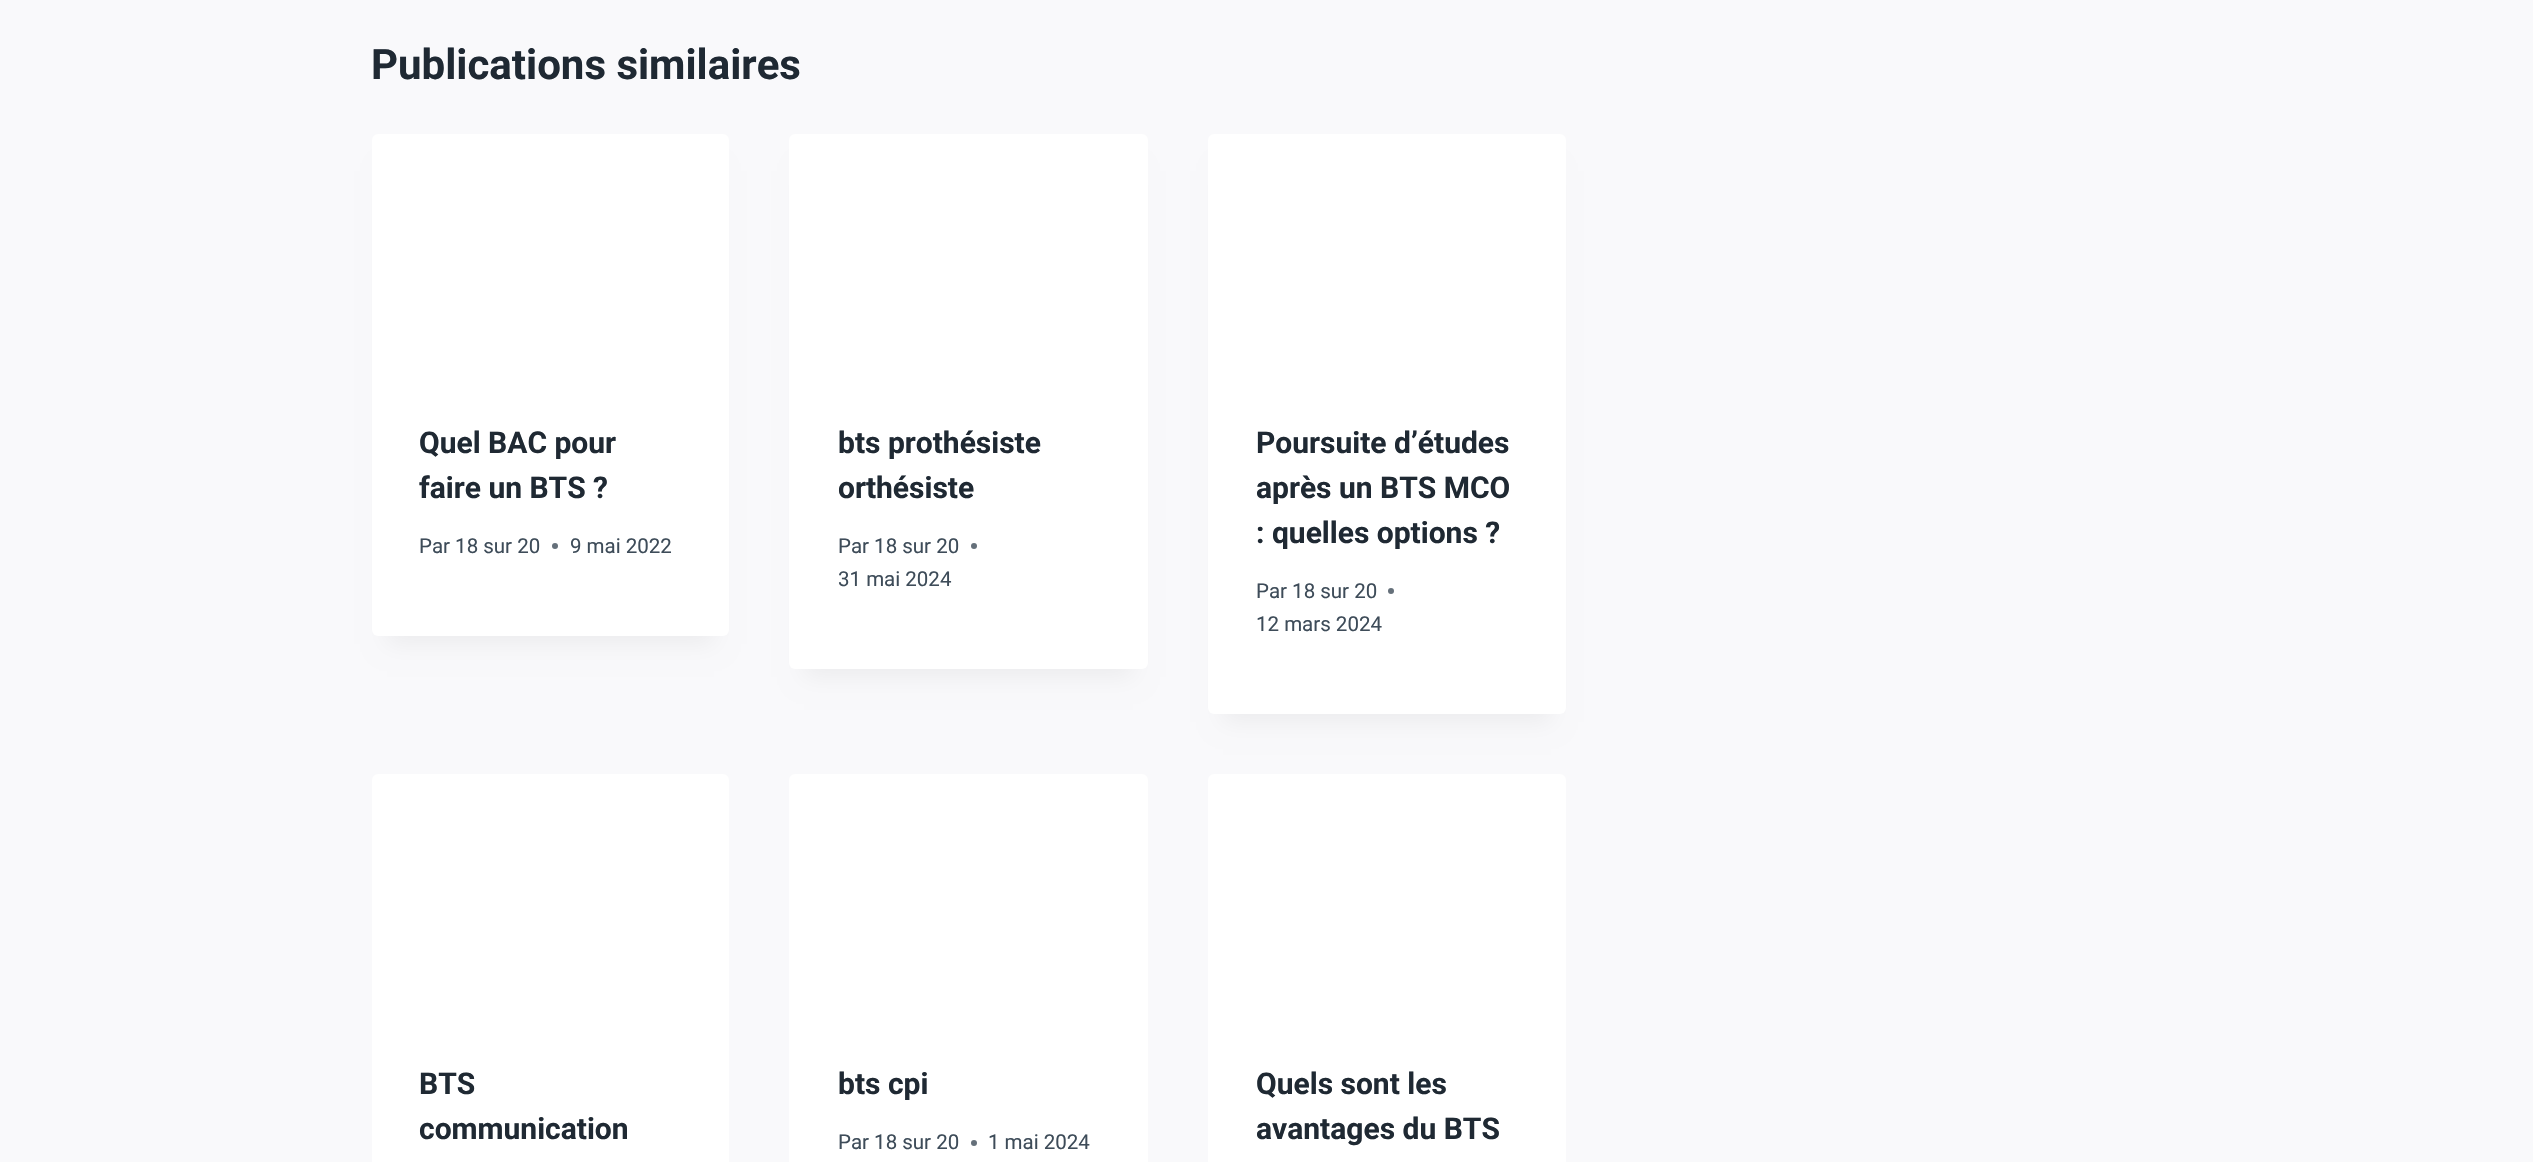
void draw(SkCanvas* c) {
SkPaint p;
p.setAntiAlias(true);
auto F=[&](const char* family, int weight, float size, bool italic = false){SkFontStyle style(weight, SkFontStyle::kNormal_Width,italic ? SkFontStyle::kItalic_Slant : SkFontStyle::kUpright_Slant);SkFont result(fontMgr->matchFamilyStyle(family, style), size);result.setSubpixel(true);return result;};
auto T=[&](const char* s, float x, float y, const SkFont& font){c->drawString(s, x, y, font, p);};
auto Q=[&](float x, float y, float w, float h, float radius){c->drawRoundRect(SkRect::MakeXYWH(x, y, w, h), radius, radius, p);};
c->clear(0xfff9f9fb);
auto f1 = F("Roboto",700,42);
p.setColor(0xff1f2933);
T("Publications similaires",371,79,f1);
p.setColor(0x0d000000);
p.setMaskFilter(SkMaskFilter::MakeBlur(kNormal_SkBlurStyle, 11));
c->drawRect(SkRect::MakeXYWH(387,171,327,473),p);
p.setMaskFilter(nullptr);
p.setColor(0xffffffff);
Q(372,134,357,502,6);
auto f2 = F("Roboto",700,30);
p.setColor(0xff1f2933);
T("Quel BAC pour",419,453,f2);
T("faire un BTS ?",419,498,f2);
auto f3 = F("Roboto",400,20.5);
p.setColor(0xff3e4c59);
T("Par 18 sur 20",419,553,f3);
p.setColor(0xff65707a);
c->drawCircle(555,546,3,p);
p.setColor(0xff3e4c59);
T("9 mai 2022",570,553,f3);
p.setColor(0x0d000000);
p.setMaskFilter(SkMaskFilter::MakeBlur(kNormal_SkBlurStyle, 11));
c->drawRect(SkRect::MakeXYWH(804,171,329,506),p);
p.setMaskFilter(nullptr);
p.setColor(0xffffffff);
Q(789,134,359,535,6);
p.setColor(0xff1f2933);
T("bts prothésiste",838,453,f2);
T("orthésiste",838,498,f2);
p.setColor(0xff3e4c59);
T("Par 18 sur 20",838,553,f3);
p.setColor(0xff65707a);
c->drawCircle(974,546,3,p);
p.setColor(0xff3e4c59);
T("31 mai 2024",838,586,f3);
p.setColor(0x0d000000);
p.setMaskFilter(SkMaskFilter::MakeBlur(kNormal_SkBlurStyle, 11));
c->drawRect(SkRect::MakeXYWH(1223,171,328,551),p);
p.setMaskFilter(nullptr);
p.setColor(0xffffffff);
Q(1208,134,358,580,6);
p.setColor(0xff1f2933);
T("Poursuite d’études",1256,453,f2);
T("après un BTS MCO",1256,498,f2);
T(": quelles options ?",1256,543,f2);
p.setColor(0xff3e4c59);
T("Par 18 sur 20",1256,598,f3);
p.setColor(0xff65707a);
c->drawCircle(1391,591,3,p);
p.setColor(0xff3e4c59);
T("12 mars 2024",1256,631,f3);
p.setColor(0xffffffff);
Q(372,774,357,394,6);
p.setColor(0xff1f2933);
T("BTS",419,1094,f2);
T("communication",419,1139,f2);
p.setColor(0xffffffff);
Q(789,774,359,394,6);
p.setColor(0xff1f2933);
T("bts cpi",838,1094,f2);
p.setColor(0xff3e4c59);
T("Par 18 sur 20",838,1149,f3);
p.setColor(0xff65707a);
c->drawCircle(974,1143,3,p);
p.setColor(0xff3e4c59);
T("1 mai 2024",988,1149,f3);
p.setColor(0xffffffff);
Q(1208,774,358,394,6);
p.setColor(0xff1f2933);
T("Quels sont les",1256,1094,f2);
T("avantages du BTS",1256,1139,f2);
}
